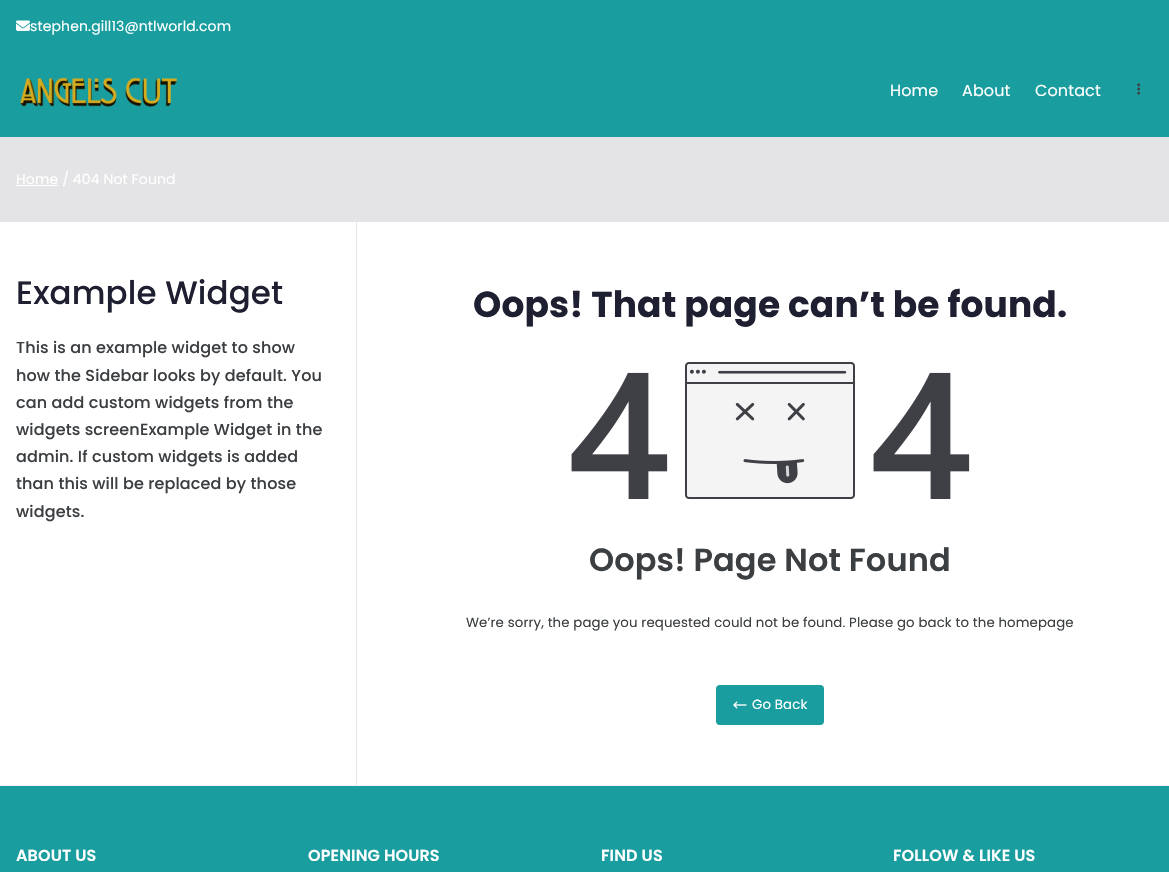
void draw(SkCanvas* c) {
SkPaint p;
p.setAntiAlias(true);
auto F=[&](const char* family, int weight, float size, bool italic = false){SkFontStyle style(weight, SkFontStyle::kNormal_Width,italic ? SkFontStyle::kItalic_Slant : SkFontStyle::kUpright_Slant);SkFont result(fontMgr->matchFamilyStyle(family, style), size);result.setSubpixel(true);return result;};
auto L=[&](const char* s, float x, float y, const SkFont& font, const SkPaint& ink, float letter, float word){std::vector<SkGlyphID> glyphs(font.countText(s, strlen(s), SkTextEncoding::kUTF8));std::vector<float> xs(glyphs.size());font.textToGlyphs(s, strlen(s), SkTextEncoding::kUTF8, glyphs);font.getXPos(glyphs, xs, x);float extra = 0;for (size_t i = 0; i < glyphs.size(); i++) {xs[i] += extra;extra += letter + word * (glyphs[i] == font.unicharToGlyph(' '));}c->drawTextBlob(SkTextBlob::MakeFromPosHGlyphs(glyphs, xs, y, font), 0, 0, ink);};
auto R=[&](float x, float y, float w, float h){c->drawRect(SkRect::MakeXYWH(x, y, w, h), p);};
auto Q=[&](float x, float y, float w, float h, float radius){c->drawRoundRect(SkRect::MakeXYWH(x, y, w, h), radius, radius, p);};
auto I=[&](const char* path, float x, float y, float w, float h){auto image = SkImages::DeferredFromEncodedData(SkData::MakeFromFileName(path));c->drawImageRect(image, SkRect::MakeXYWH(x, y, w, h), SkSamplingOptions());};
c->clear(0xff199d9f);
I("1.png",16,20,14,11);
auto f1 = F("Poppins",400,14);
p.setColor(0xffffffff);
L("stephen.gill13@ntlworld.com",30,31,f1,p,.13,0);
I("2.png",19,77,158,30);
auto f2 = F("Poppins",400,16);
L("Home",890,96,f2,p,.13,0);
L("About",962,96,f2,p,.13,0);
L("Contact",1035,96,f2,p,.13,0);
I("3.png",1137,83,4,12);
p.setColor(0xffe4e4e7);
R(0,137,1169,85);
p.setColor(0xffffffff);
R(16,185,42,1);
L("Home / 404 Not Found",16,184,f1,p,.13,0);
R(0,222,1169,563);
p.setColor(0xffe4e4e7);
R(356,222,1,563);
auto f3 = F("Poppins",500,32.5);
p.setColor(0xff1f1f32);
L("Example Widget",16,304,f3,p,.13,0);
auto f4 = F("Poppins",500,16);
p.setColor(0xff3c3f42);
L("This is an example widget to show",16,353,f4,p,.13,0);
L("how the Sidebar looks by default. You",16,381,f4,p,.13,0);
L("can add custom widgets from the",16,408,f4,p,.13,0);
L("widgets screenExample Widget in the",16,435,f4,p,.13,0);
L("admin. If custom widgets is added",16,462,f4,p,.13,0);
L("than this will be replaced by those",16,489,f4,p,.13,0);
L("widgets.",16,517,f4,p,.13,0);
auto f5 = F("Poppins",700,36);
p.setColor(0xff1f1f32);
L("Oops! That page can’t be found.",473,317,f5,p,.13,0);
I("4.png",571,362,399,137);
auto f6 = F("Poppins",600,32);
p.setColor(0xff3c3f42);
L("Oops! Page Not Found",589,571,f6,p,.13,0);
auto f7 = F("Poppins",400,13.3);
L("We’re sorry, the page you requested could not be found. Please go back to the homepage",466,627,f7,p,.13,0);
p.setColor(0xff199d9f);
Q(716,685,108,40,4);
I("5.png",733,701,14,8);
p.setColor(0xffffffff);
L("Go Back",752,709,f7,p,.13,0);
p.setColor(0xfff5f5f5);
R(0,785,1169,1);
auto f8 = F("Poppins",600,16);
p.setColor(0xffffffff);
L("ABOUT US",16,861,f8,p,.13,0);
L("OPENING HOURS",308,861,f8,p,.13,0);
L("FIND US",601,861,f8,p,.13,0);
L("FOLLOW & LIKE US",893,861,f8,p,.13,0);
}
